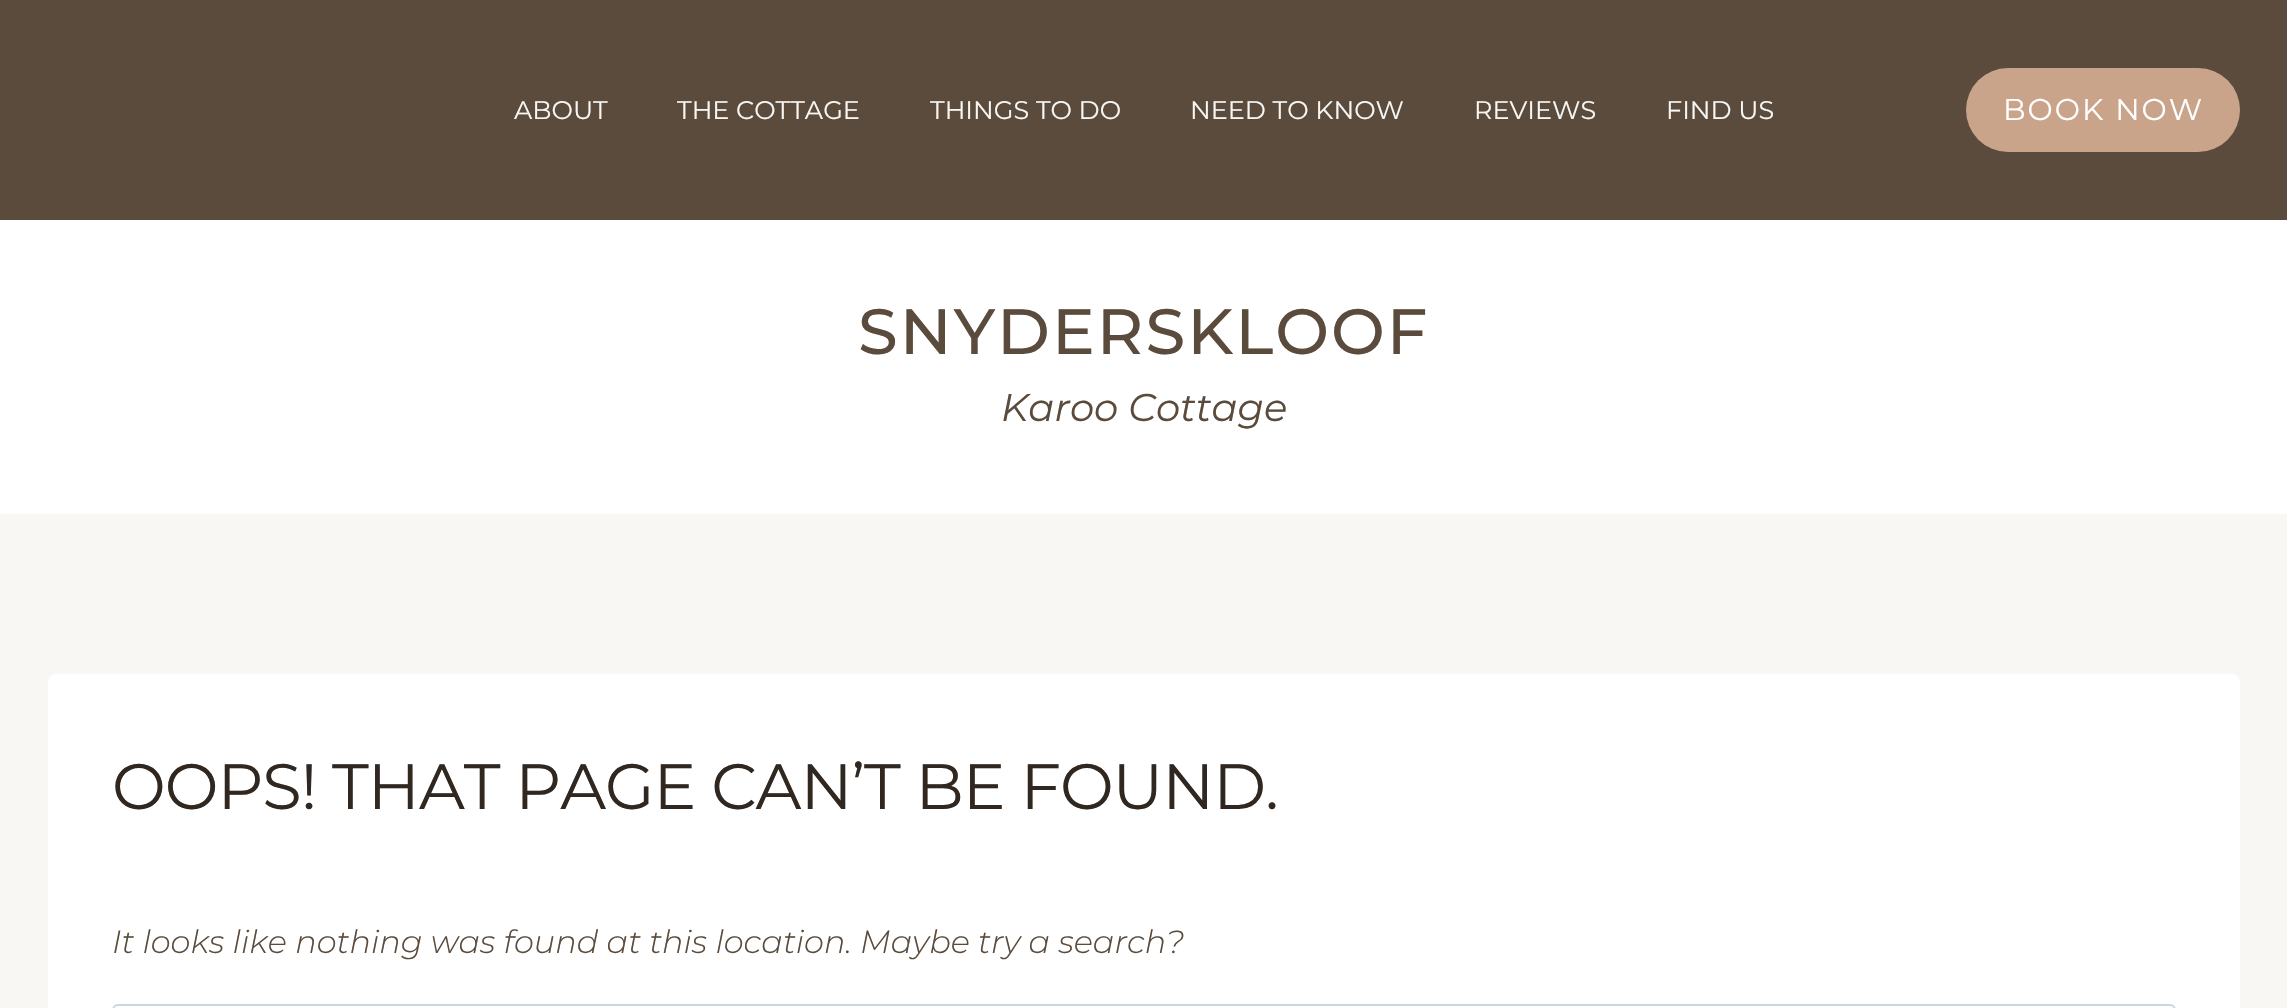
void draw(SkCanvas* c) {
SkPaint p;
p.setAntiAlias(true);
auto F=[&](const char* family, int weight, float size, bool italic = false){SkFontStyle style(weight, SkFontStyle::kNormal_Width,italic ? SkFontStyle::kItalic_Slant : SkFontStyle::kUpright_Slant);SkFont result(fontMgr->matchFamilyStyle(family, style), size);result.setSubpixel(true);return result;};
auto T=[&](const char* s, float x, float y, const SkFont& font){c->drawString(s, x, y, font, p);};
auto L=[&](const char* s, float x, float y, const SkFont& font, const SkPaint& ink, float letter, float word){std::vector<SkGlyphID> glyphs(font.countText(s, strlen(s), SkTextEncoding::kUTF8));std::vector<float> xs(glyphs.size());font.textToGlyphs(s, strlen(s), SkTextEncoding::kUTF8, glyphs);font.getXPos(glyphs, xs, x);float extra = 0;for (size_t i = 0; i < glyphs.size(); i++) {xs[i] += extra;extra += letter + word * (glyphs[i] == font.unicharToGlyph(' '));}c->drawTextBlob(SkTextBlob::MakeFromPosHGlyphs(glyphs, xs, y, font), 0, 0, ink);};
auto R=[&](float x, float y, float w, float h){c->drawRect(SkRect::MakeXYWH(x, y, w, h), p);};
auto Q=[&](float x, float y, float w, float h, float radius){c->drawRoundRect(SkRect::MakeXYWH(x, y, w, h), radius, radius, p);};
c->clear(0xfff9f7f4);
p.setColor(0xff5a4b3c);
R(0,0,2287,220);
auto f1 = F("Montserrat",400,25.5);
p.setColor(0xfff9f7f4);
T("ABOUT",514,119,f1);
T("THE COTTAGE",677,119,f1);
T("THINGS TO DO",930,119,f1);
T("NEED TO KNOW",1190,119,f1);
T("REVIEWS",1474,119,f1);
T("FIND US",1666,119,f1);
p.setColor(0xffc9a48b);
Q(1966,68,274,84,42);
auto f2 = F("Montserrat",400,30);
p.setColor(0xffffffff);
L("BOOK NOW",2003,120,f2,p,2,0);
R(0,220,2287,294);
auto f3 = F("Montserrat",500,64);
p.setColor(0xff5a4b3c);
L("SNYDERSKLOOF",858,354,f3,p,2,0);
auto f4 = F("Montserrat",400,38.5,true);
T("Karoo Cottage",1001,421,f4);
p.setColor(0xffffffff);
Q(48,674,2192,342,8);
auto f5 = F("Montserrat",400,64);
p.setColor(0xff302820);
L("OOPS! THAT PAGE CAN’T BE FOUND.",112,809,f5,p,-1,0);
auto f6 = F("Montserrat",300,32,true);
p.setColor(0xff5a4b3c);
T("It looks like nothing was found at this location. Maybe try a search?",112,953,f6);
p.setStroke(true);
p.setStrokeWidth(2);
p.setColor(0xffcbd5e0);
c->drawRoundRect(SkRect::MakeXYWH(113,1005,2062,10),5,5,p);
}
